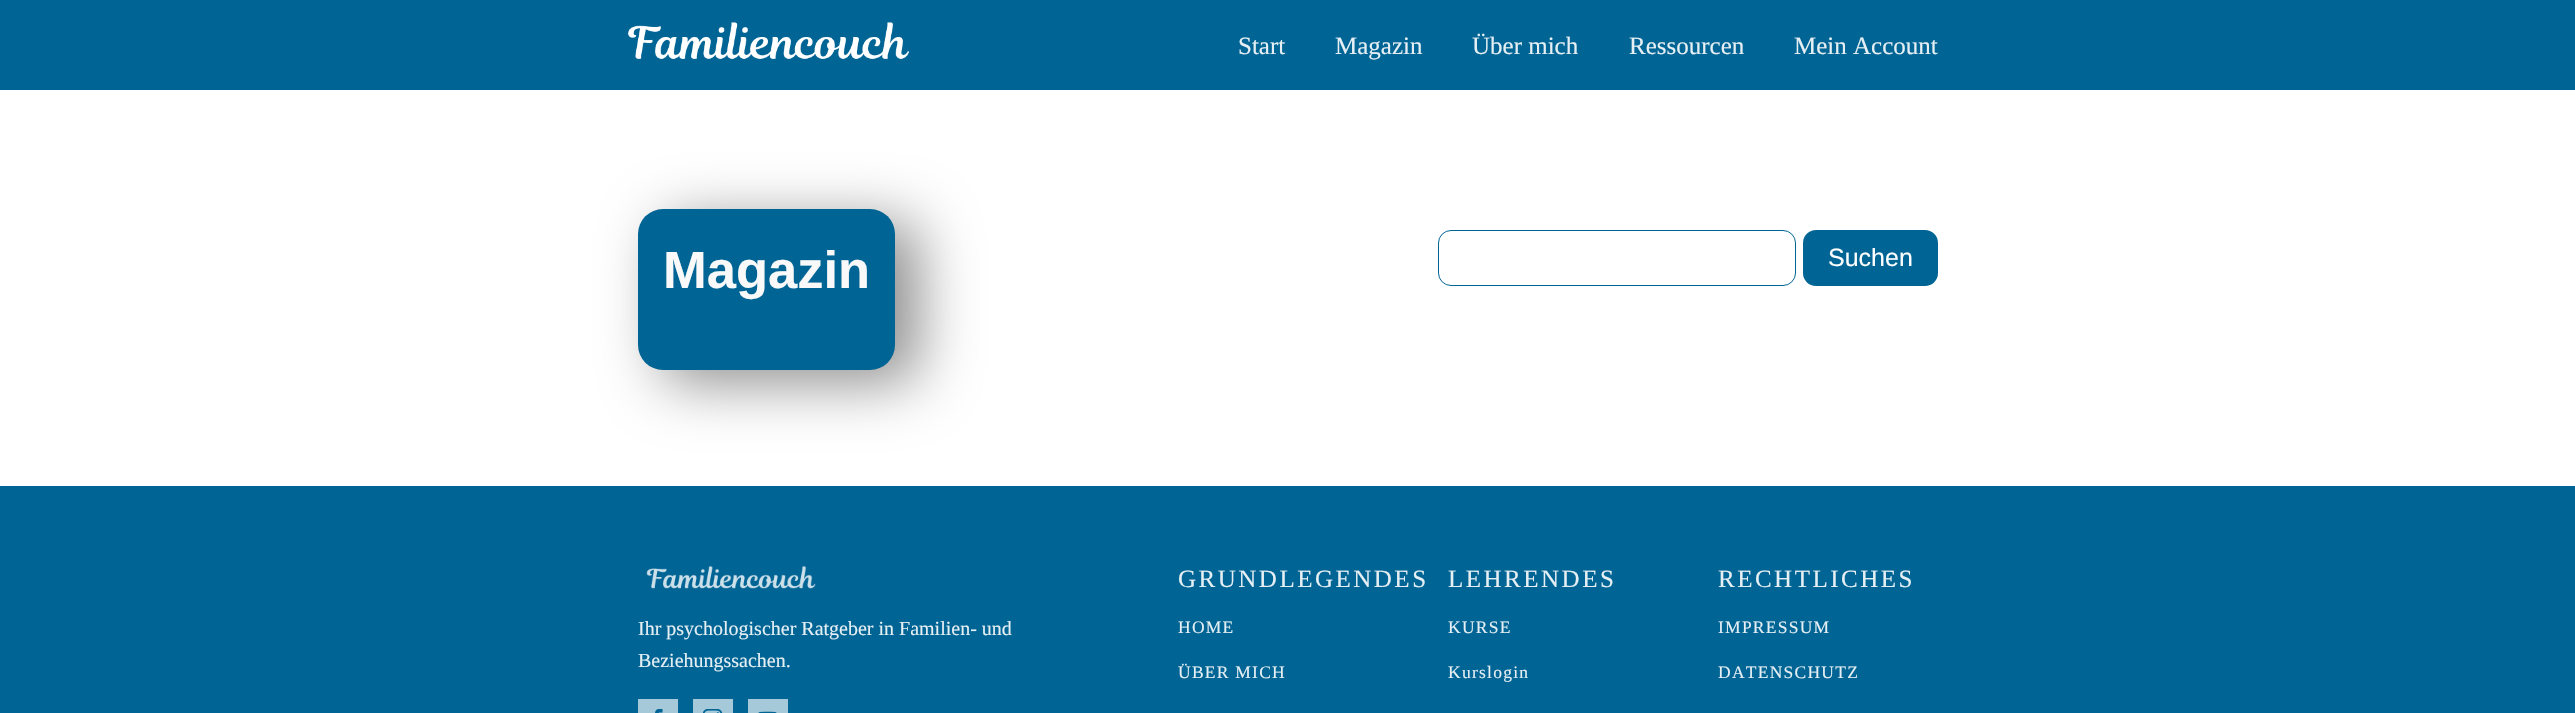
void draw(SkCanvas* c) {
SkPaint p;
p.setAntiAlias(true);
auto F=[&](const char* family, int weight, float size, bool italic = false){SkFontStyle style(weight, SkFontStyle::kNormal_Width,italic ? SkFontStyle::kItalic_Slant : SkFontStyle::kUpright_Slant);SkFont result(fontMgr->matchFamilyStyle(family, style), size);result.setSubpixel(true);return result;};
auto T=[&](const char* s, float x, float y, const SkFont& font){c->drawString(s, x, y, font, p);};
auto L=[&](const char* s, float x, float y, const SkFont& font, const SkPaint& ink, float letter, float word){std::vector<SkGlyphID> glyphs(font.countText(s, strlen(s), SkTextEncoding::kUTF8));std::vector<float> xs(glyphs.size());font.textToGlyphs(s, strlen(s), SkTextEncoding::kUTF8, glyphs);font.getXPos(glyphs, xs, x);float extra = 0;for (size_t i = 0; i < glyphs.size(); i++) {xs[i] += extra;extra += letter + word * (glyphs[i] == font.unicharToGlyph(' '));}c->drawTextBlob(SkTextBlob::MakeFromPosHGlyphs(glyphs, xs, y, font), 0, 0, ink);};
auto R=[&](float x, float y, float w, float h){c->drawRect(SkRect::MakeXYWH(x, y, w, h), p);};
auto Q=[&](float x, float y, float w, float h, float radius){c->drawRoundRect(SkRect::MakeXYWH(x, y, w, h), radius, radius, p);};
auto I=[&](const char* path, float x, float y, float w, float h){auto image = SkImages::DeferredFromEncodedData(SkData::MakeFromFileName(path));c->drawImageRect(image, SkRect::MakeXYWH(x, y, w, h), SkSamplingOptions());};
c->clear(0xffffffff);
p.setColor(0xff006494);
R(0,0,2575,90);
I("1.png",628,22,281,37);
auto f1 = F("Liberation Serif",400,25);
p.setColor(0xffe5eff4);
T("Start",1238,54,f1);
T("Magazin",1335,54,f1);
T("Über mich",1472,54,f1);
T("Ressourcen",1629,54,f1);
T("Mein Account",1794,54,f1);
p.setColor(0x70000000);
p.setMaskFilter(SkMaskFilter::MakeBlur(kNormal_SkBlurStyle, 29));
c->drawRoundRect(SkRect::MakeXYWH(661,221,258,162),25,25,p);
p.setMaskFilter(nullptr);
p.setColor(0xff006494);
Q(638,209,257,161,25);
auto f2 = F("Liberation Sans",700,52.5);
p.setColor(0xfff9f9fa);
T("Magazin",663,288,f2);
p.setStroke(true);
p.setStrokeWidth(1);
p.setColor(0xff006494);
c->drawRoundRect(SkRect::MakeXYWH(1438.5,230.5,357,55),12.5,12.5,p);
p.setStroke(false);
Q(1803,230,135,56,13);
auto f3 = F("Liberation Sans",400,25);
p.setColor(0xffffffff);
T("Suchen",1828,266,f3);
p.setColor(0xff006494);
R(0,486,2575,227);
I("2.png",646,566,170,23);
auto f4 = F("Liberation Serif",400,20);
p.setColor(0xffe5eff4);
T("Ihr psychologischer Ratgeber in Familien- und",638,635,f4);
T("Beziehungssachen.",638,667,f4);
p.setColor(0xffa6c9da);
R(638,699,40,14);
I("3.png",655,709,8,4);
R(693,699,40,14);
I("4.png",703,709,20,4);
R(748,699,40,14);
I("5.png",758,711,19,2);
p.setColor(0xffe5eff4);
L("GRUNDLEGENDES",1178,587,f1,p,2.5,0);
auto f5 = F("Liberation Serif",400,17.5);
L("HOME",1178,633,f5,p,1.25,0);
L("ÜBER MICH",1178,678,f5,p,1.25,0);
L("LEHRENDES",1448,587,f1,p,2.5,0);
L("KURSE",1448,633,f5,p,1.25,0);
L("Kurslogin",1448,678,f5,p,1.25,0);
L("RECHTLICHES",1718,587,f1,p,2.5,0);
L("IMPRESSUM",1718,633,f5,p,1.25,0);
L("DATENSCHUTZ",1718,678,f5,p,1.25,0);
}
